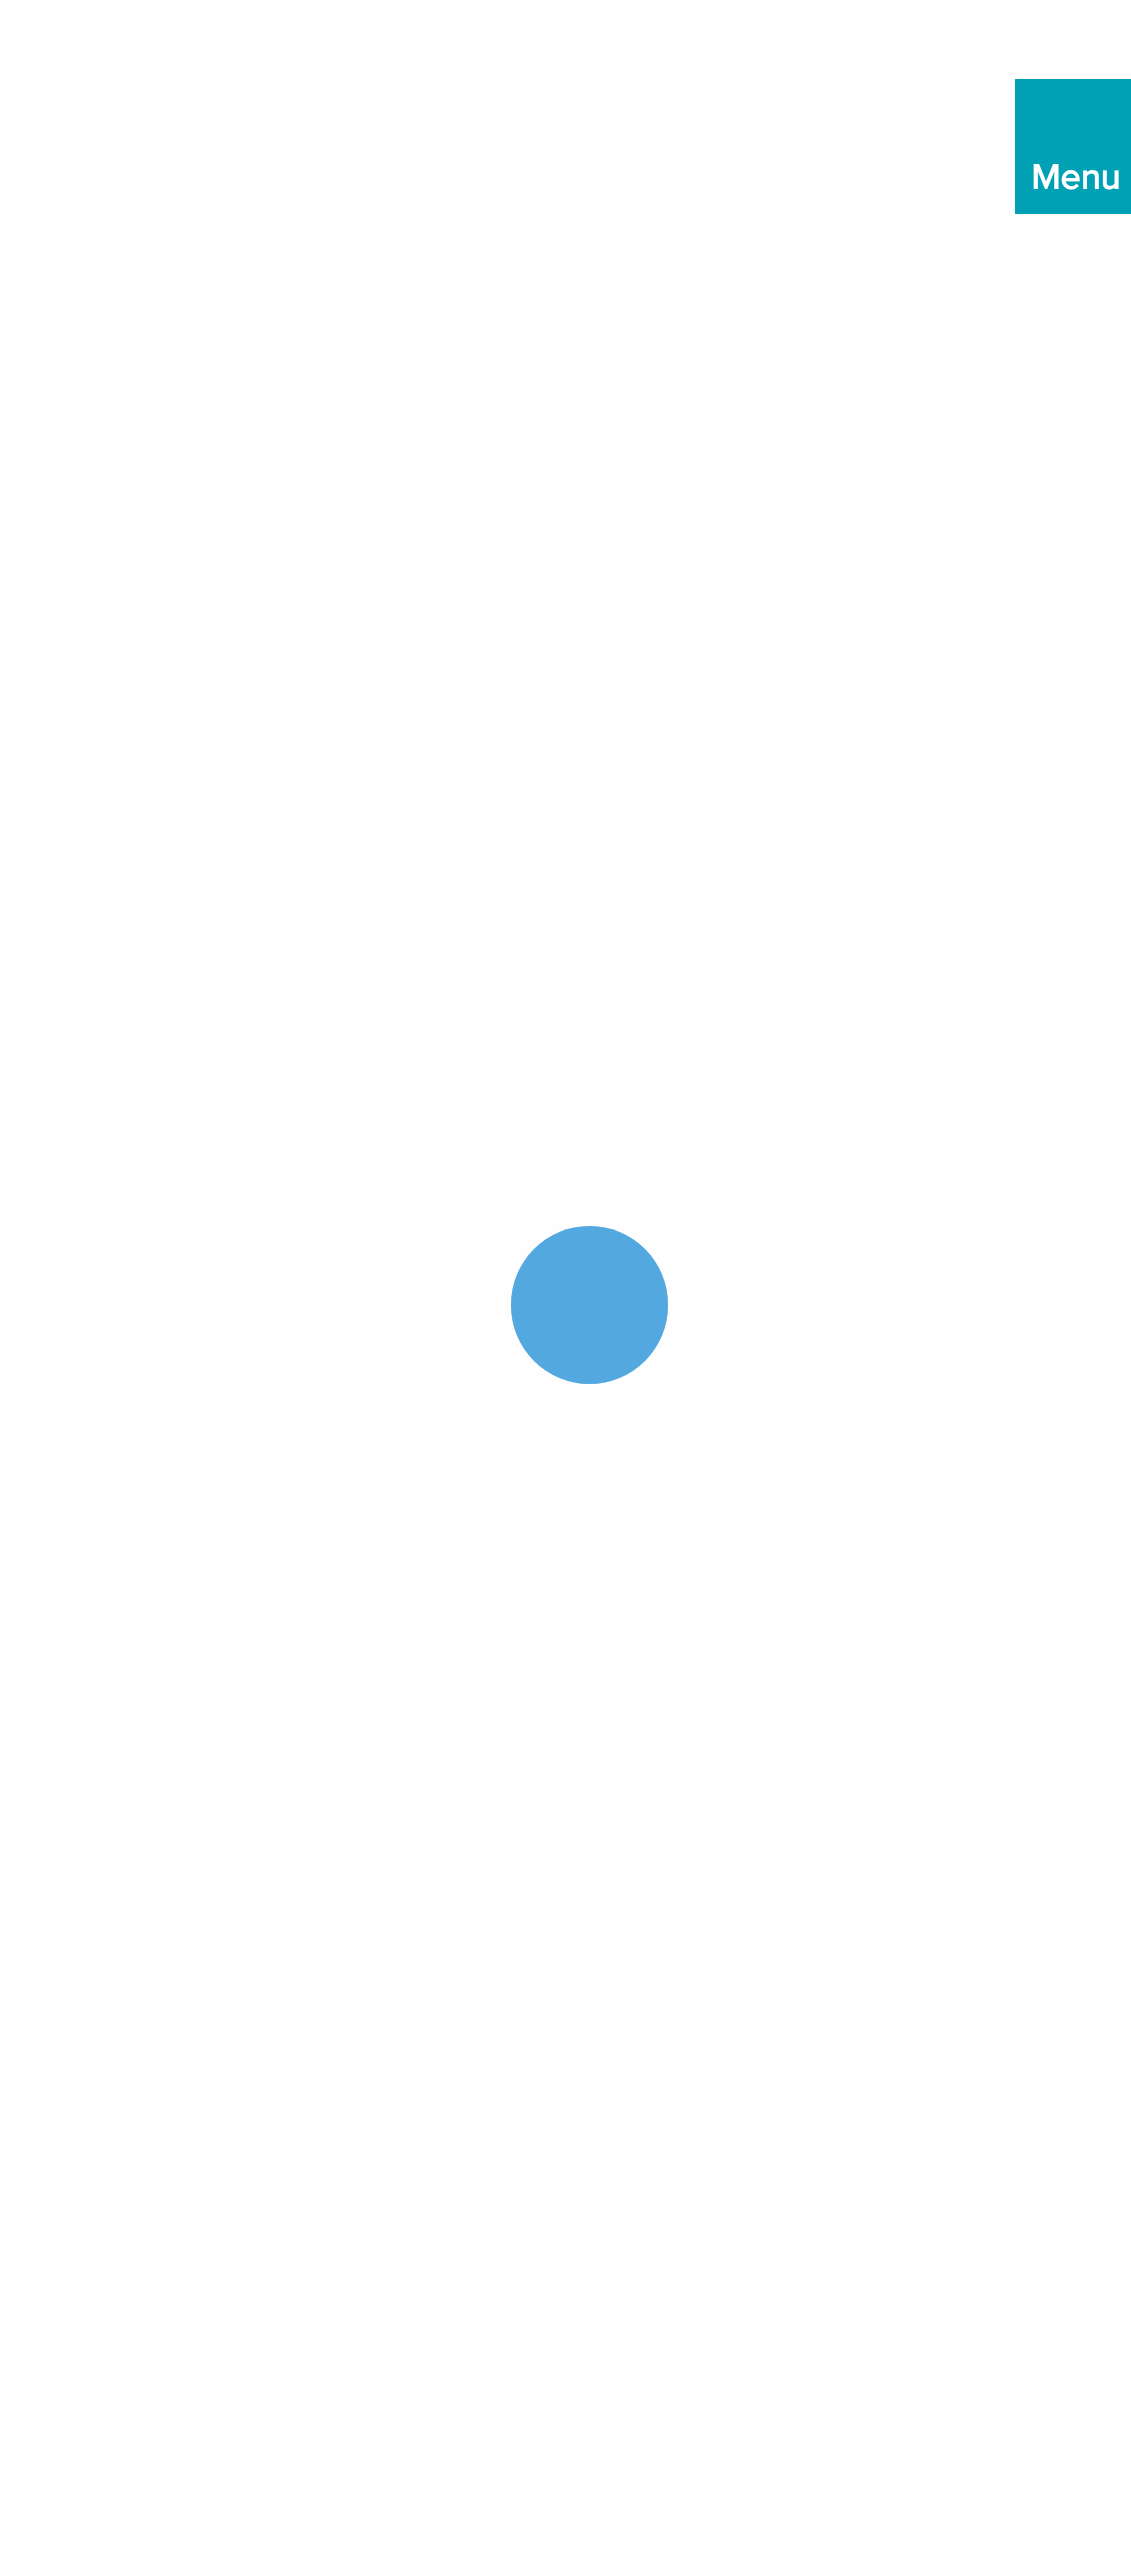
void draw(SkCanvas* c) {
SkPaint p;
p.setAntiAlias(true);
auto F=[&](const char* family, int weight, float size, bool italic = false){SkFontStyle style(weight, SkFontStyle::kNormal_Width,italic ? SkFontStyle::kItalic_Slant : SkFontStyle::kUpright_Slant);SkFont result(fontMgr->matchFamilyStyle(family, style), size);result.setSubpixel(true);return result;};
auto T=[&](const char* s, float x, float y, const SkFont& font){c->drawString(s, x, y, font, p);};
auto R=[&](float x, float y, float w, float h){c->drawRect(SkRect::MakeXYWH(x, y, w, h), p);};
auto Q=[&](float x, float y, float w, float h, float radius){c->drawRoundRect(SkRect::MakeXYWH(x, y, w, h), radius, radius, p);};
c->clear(0xfffefefe);
p.setColor(0xff00a1b5);
R(1015,79,116,135);
auto f1 = F("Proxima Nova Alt",700,36);
p.setColor(0xffffffff);
T("Menu",1031,189,f1);
p.setColor(0xff85c1e9);
Q(511,1226,157,158,78.5);
p.setColor(0x993498db);
Q(511,1226,157,158,78.5);
}
